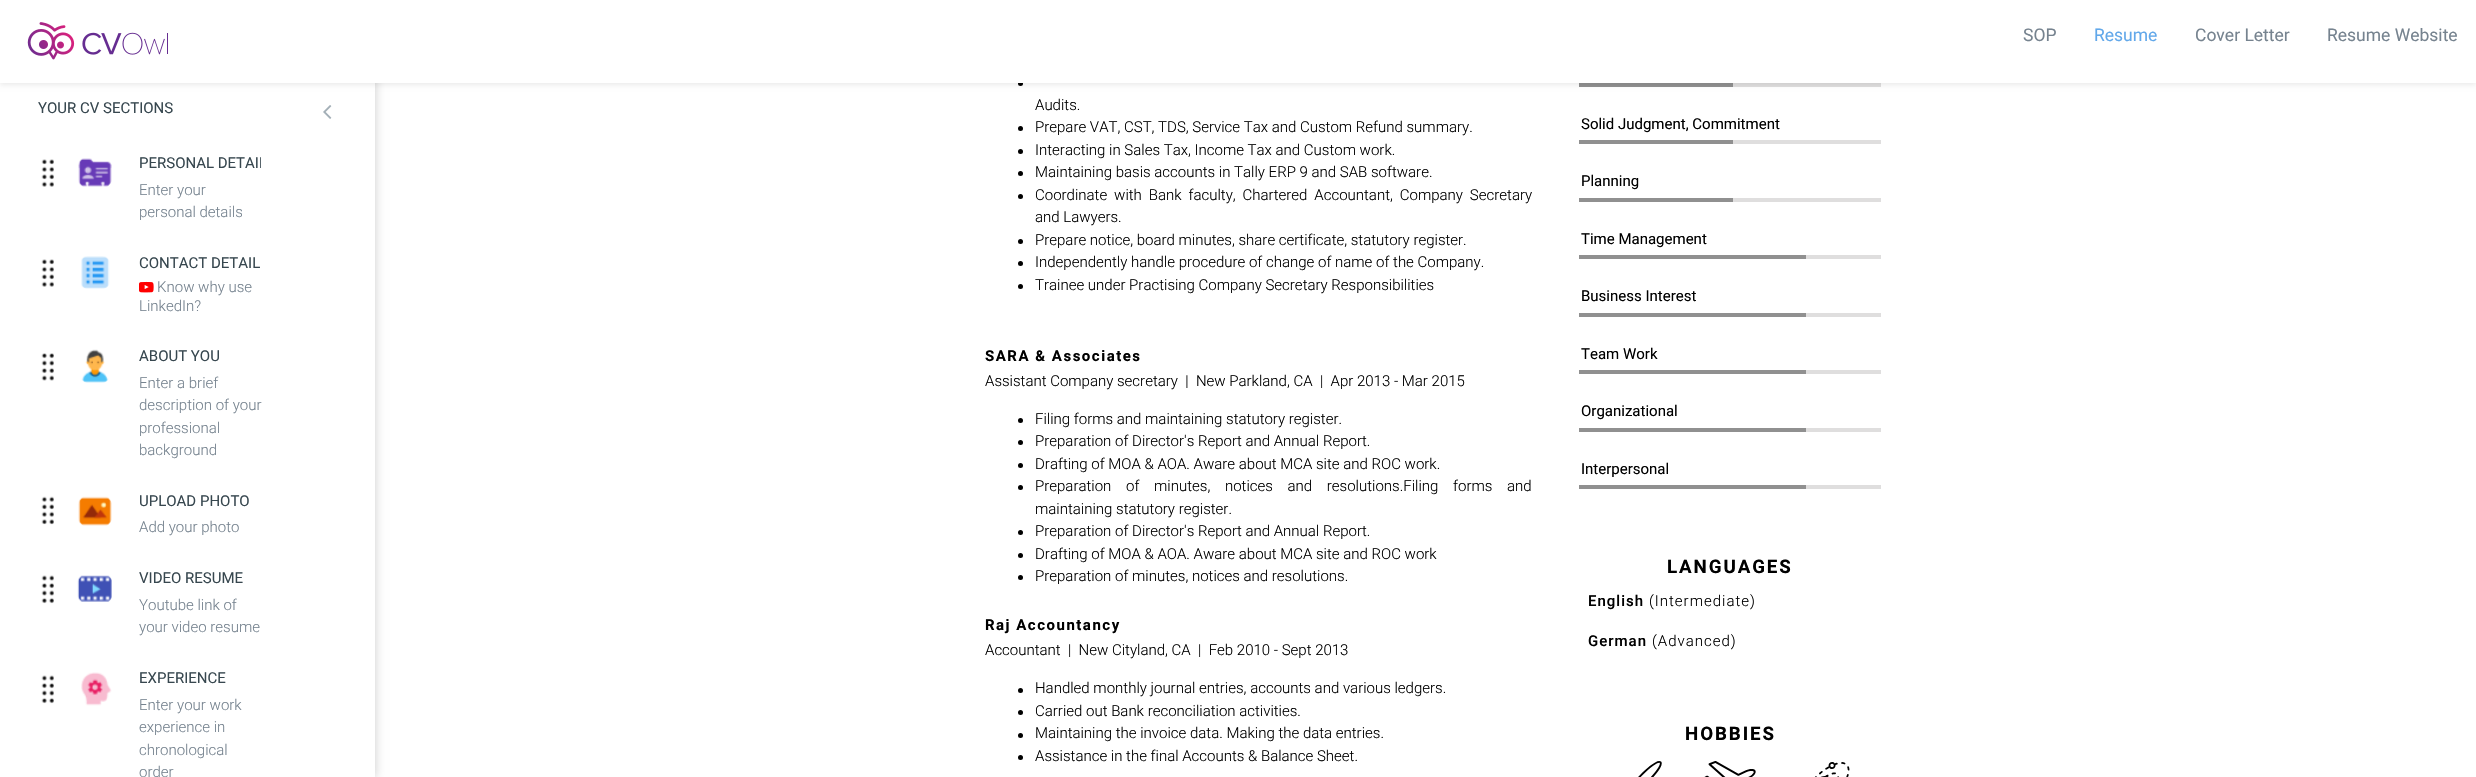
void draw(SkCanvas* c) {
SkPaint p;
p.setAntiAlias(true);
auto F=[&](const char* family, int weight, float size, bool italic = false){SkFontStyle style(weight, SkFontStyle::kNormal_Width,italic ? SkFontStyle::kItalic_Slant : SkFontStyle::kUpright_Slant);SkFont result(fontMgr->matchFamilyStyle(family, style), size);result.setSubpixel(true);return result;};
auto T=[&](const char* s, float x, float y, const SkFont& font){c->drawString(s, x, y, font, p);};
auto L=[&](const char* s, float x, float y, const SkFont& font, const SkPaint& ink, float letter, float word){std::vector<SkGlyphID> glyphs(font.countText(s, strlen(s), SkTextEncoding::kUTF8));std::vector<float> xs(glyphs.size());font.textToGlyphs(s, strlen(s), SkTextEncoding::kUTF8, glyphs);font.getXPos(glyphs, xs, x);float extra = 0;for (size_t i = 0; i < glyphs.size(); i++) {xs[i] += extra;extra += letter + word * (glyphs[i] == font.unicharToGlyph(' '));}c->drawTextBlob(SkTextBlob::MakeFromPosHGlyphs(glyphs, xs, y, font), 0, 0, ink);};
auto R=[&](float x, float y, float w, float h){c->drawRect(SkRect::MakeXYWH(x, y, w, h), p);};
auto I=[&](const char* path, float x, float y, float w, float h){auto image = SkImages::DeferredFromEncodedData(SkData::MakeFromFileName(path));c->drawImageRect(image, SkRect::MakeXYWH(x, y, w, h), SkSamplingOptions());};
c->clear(0xffffffff);
p.setColor(0x33000000);
p.setMaskFilter(SkMaskFilter::MakeBlur(kNormal_SkBlurStyle, 5));
c->drawRect(SkRect::MakeXYWH(0,60,375,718),p);
p.setMaskFilter(nullptr);
p.setColor(0xffffffff);
R(0,83,375,694);
p.setColor(0xff000000);
c->drawCircle(1020.5,83.5,2.5,p);
p.setColor(0xffdfdede);
R(1729,83,152,4);
p.setColor(0xff909090);
R(1579,83,154,4);
p.setColor(0x14000000);
p.setMaskFilter(SkMaskFilter::MakeBlur(kNormal_SkBlurStyle, 2.5));
c->drawRect(SkRect::MakeXYWH(0,3,2476,82),p);
p.setMaskFilter(nullptr);
p.setColor(0xffffffff);
R(0,0,2476,83);
I("1.png",27,22,141,38);
auto f1 = F("Roboto",400,17.5);
p.setColor(0xff76838f);
T("SOP",2023,41,f1);
p.setColor(0xff62a8ea);
T("Resume",2094,41,f1);
p.setColor(0xff76838f);
T("Cover Letter",2195,41,f1);
T("Resume Website",2327,41,f1);
auto f2 = F("Roboto",400,15);
p.setColor(0xff37474f);
T("YOUR CV SECTIONS",38,113,f2);
I("2.png",323,105,9,14);
I("3.png",41,159,13,28);
I("4.png",78,158,34,29);
c->save();
c->clipRect(SkRect::MakeXYWH(139,154,122,19));
T("PERSONAL DETAIL",139,168,f2);
c->restore();
auto f3 = F("Roboto",300,15);
p.setColor(0xff76838f);
T("Enter your",139,195,f3);
T("personal details",139,217,f3);
I("3.png",41,259,13,28);
I("5.png",81,256,29,33);
p.setColor(0xff37474f);
T("CONTACT DETAIL",139,268,f2);
I("6.png",139,281,15,12);
p.setColor(0xff76838f);
T("Know why use",157,292,f3);
T("LinkedIn?",139,311,f3);
I("7.png",41,353,13,28);
I("8.png",81,349,28,34);
p.setColor(0xff37474f);
T("ABOUT YOU",139,361,f2);
p.setColor(0xff76838f);
T("Enter a brief",139,388,f3);
T("description of your",139,410,f3);
T("professional",139,433,f3);
T("background",139,455,f3);
I("9.png",41,496,13,29);
I("10.png",78,496,34,30);
p.setColor(0xff37474f);
T("UPLOAD PHOTO",139,506,f2);
p.setColor(0xff76838f);
T("Add your photo",139,532,f3);
I("11.png",41,575,13,29);
I("12.png",77,575,35,27);
p.setColor(0xff37474f);
T("VIDEO RESUME",139,583,f2);
p.setColor(0xff76838f);
T("Youtube link of",139,610,f3);
T("your video resume",139,632,f3);
I("11.png",41,675,13,29);
I("13.png",81,672,31,34);
p.setColor(0xff37474f);
T("EXPERIENCE",139,683,f2);
p.setColor(0xff76838f);
T("Enter your work",139,710,f3);
T("experience in",139,732,f3);
T("chronological",139,755,f3);
T("order",139,777,f3);
p.setColor(0xff000000);
T("Audits.",1035,110,f3);
c->drawCircle(1020.5,128.5,2.5,p);
T("Prepare VAT, CST, TDS, Service Tax and Custom Refund summary.",1035,132,f3);
c->drawCircle(1020.5,151.5,2.5,p);
T("Interacting in Sales Tax, Income Tax and Custom work.",1035,155,f3);
c->drawCircle(1020.5,173.5,2.5,p);
T("Maintaining basis accounts in Tally ERP 9 and SAB software.",1035,177,f3);
c->drawCircle(1020.5,196.5,2.5,p);
L("Coordinate with Bank faculty, Chartered Accountant, Company Secretary",1035,200,f3,p,0,3.25);
T("and Lawyers.",1035,222,f3);
c->drawCircle(1020.5,241.5,2.5,p);
T("Prepare notice, board minutes, share certificate, statutory register.",1035,245,f3);
c->drawCircle(1020.5,263.5,2.5,p);
T("Independently handle procedure of change of name of the Company.",1035,267,f3);
c->drawCircle(1020.5,286.5,2.5,p);
T("Trainee under Practising Company Secretary Responsibilities",1035,290,f3);
auto f4 = F("Roboto",700,15);
L("SARA & Associates",985,361,f4,p,1.5,0);
T("Assistant Company secretary  |  New Parkland, CA  |  Apr 2013 - Mar 2015",985,386,f3);
c->drawCircle(1020.5,420.5,2.5,p);
T("Filing forms and maintaining statutory register.",1035,424,f3);
c->drawCircle(1020.5,442.5,2.5,p);
T("Preparation of Director's Report and Annual Report.",1035,446,f3);
c->drawCircle(1020.5,465.5,2.5,p);
T("Drafting of MOA & AOA. Aware about MCA site and ROC work.",1035,469,f3);
c->drawCircle(1020.5,487.5,2.5,p);
L("Preparation of minutes, notices and resolutions.Filing forms and",1035,491,f3,p,0,11);
T("maintaining statutory register.",1035,514,f3);
c->drawCircle(1020.5,532.5,2.5,p);
T("Preparation of Director's Report and Annual Report.",1035,536,f3);
c->drawCircle(1020.5,555.5,2.5,p);
T("Drafting of MOA & AOA. Aware about MCA site and ROC work",1035,559,f3);
c->drawCircle(1020.5,577.5,2.5,p);
T("Preparation of minutes, notices and resolutions.",1035,581,f3);
L("Raj Accountancy",985,630,f4,p,1.5,0);
T("Accountant  |  New Cityland, CA  |  Feb 2010 - Sept 2013",985,655,f3);
c->drawCircle(1020.5,690.5,2.5,p);
T("Handled monthly journal entries, accounts and various ledgers.",1035,693,f3);
c->drawCircle(1020.5,712.5,2.5,p);
T("Carried out Bank reconciliation activities.",1035,716,f3);
c->drawCircle(1020.5,735.5,2.5,p);
T("Maintaining the invoice data. Making the data entries.",1035,738,f3);
c->drawCircle(1020.5,757.5,2.5,p);
T("Assistance in the final Accounts & Balance Sheet.",1035,761,f3);
T("Solid Judgment, Commitment",1581,129,f2);
p.setColor(0xffdfdede);
R(1729,140,152,4);
p.setColor(0xff909090);
R(1579,140,154,4);
p.setColor(0xff000000);
T("Planning",1581,186,f2);
p.setColor(0xffdfdede);
R(1729,198,152,4);
p.setColor(0xff909090);
R(1579,198,154,4);
p.setColor(0xff000000);
T("Time Management",1581,244,f2);
p.setColor(0xffdfdede);
R(1803,255,78,4);
p.setColor(0xff909090);
R(1579,255,227,4);
p.setColor(0xff000000);
T("Business Interest",1581,301,f2);
p.setColor(0xffdfdede);
R(1803,313,78,4);
p.setColor(0xff909090);
R(1579,313,227,4);
p.setColor(0xff000000);
T("Team Work",1581,359,f2);
p.setColor(0xffdfdede);
R(1803,370,78,4);
p.setColor(0xff909090);
R(1579,370,227,4);
p.setColor(0xff000000);
T("Organizational",1581,416,f2);
p.setColor(0xffdfdede);
R(1803,428,78,4);
p.setColor(0xff909090);
R(1579,428,227,4);
p.setColor(0xff000000);
T("Interpersonal",1581,474,f2);
p.setColor(0xffdfdede);
R(1803,485,78,4);
p.setColor(0xff909090);
R(1579,485,227,4);
auto f5 = F("Roboto",700,18.75);
p.setColor(0xff000000);
L("LANGUAGES",1667,573,f5,p,1.9,0);
auto f6 = F("Roboto",500,15);
L("English",1588,606,f6,p,1,0);
L("(Intermediate)",1649,606,f3,p,1,0);
L("German",1588,646,f6,p,1,0);
L("(Advanced)",1652,646,f3,p,1,0);
L("HOBBIES",1685,740,f5,p,1.9,0);
I("14.png",1638,761,24,16);
I("15.png",1704,761,52,16);
I("16.png",1815,762,35,15);
}
